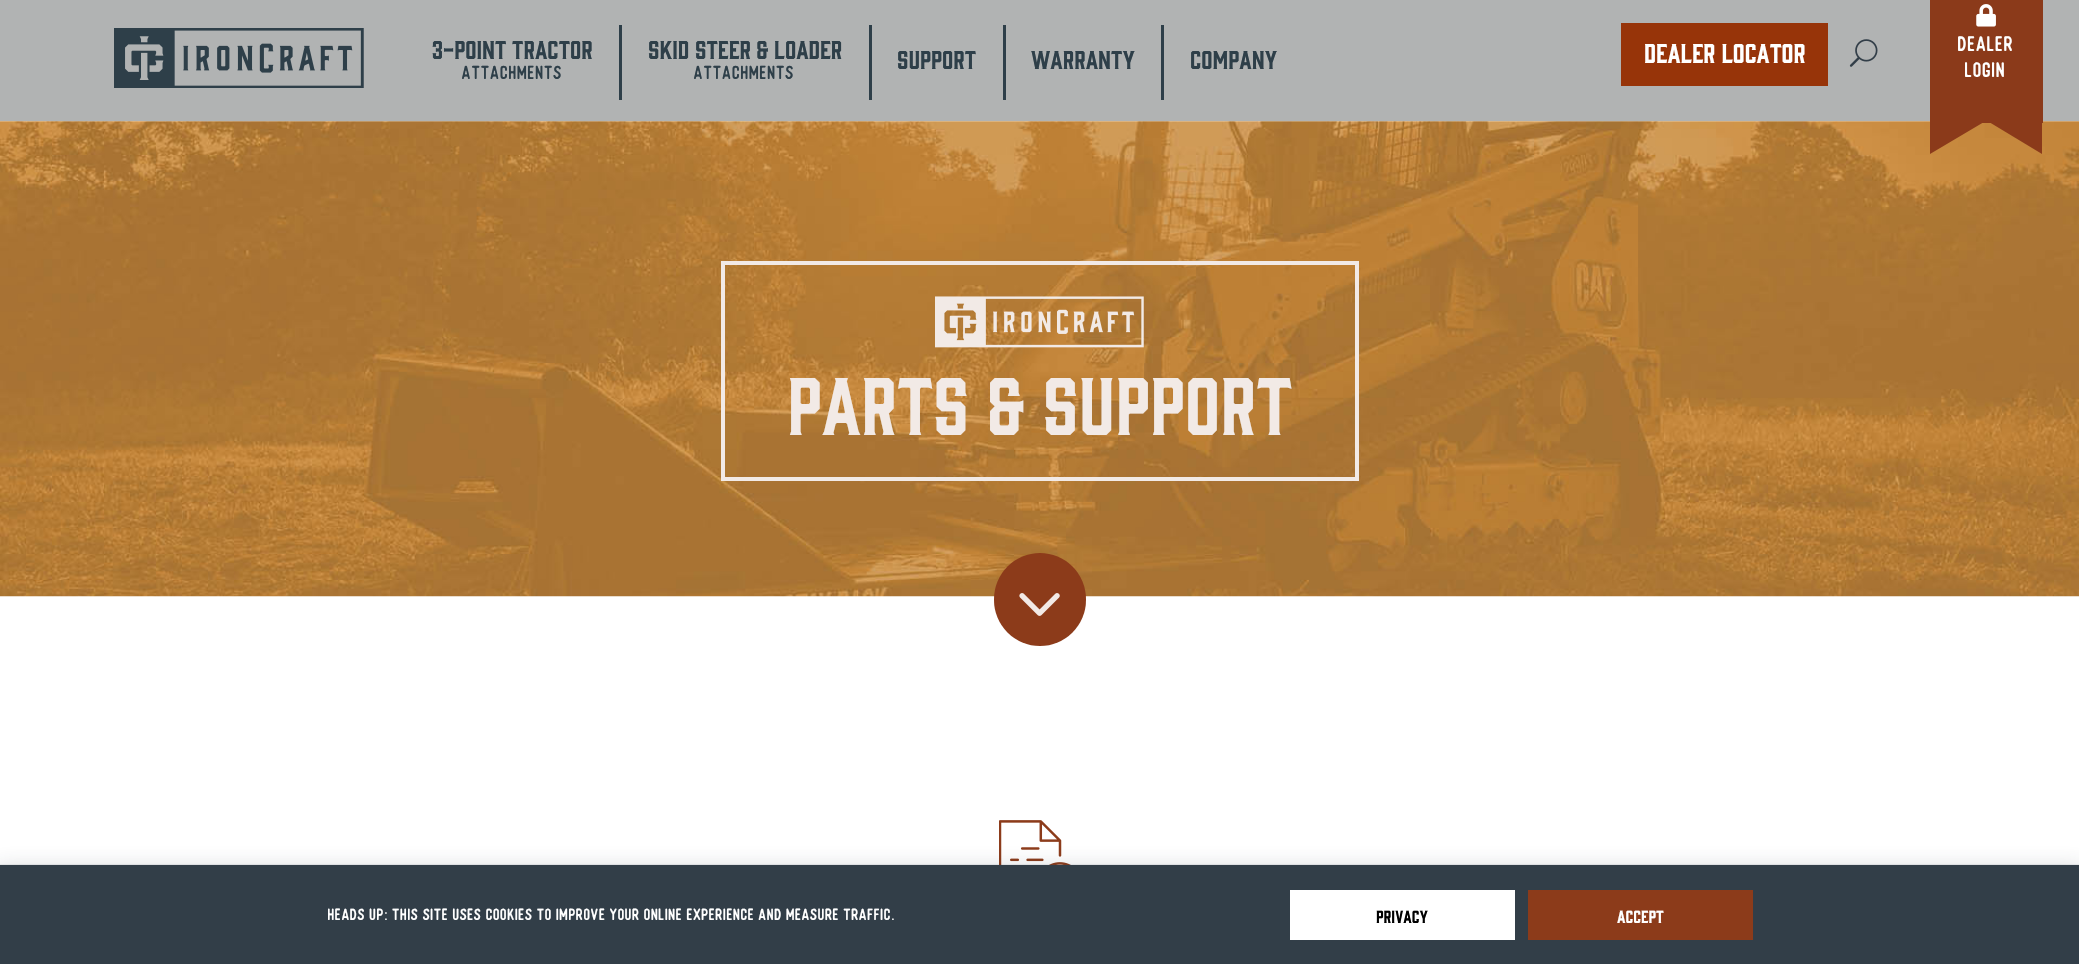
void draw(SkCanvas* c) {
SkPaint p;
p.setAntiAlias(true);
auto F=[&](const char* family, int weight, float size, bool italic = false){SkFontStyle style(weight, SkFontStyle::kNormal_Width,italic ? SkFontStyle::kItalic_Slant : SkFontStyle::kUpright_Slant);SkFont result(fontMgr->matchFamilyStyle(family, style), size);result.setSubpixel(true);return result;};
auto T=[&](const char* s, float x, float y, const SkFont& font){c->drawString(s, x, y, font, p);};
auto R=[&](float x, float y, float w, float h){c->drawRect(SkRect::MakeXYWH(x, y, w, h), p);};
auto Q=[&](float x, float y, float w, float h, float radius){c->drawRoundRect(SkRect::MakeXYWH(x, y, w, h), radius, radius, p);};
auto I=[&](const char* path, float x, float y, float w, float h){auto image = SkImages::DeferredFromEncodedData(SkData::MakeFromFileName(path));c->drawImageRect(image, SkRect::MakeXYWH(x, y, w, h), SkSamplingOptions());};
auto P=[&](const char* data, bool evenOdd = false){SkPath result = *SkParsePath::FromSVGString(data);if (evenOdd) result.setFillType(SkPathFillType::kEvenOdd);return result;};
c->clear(0xffffffff);
p.setColor(0xffb1b3b3);
R(0,0,2079,121);
I("1.png",114,28,250,60);
p.setColor(0xff2e3f49);
R(619,25,3,75);
auto f1 = F("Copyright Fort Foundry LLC",400,23.75);
T("3-Point Tractor",432,59,f1);
auto f2 = F("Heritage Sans",400,19);
T("Attachments",462,79,f2);
R(869,25,3,75);
T("Skid Steer & Loader",648,59,f1);
T("Attachments",694,79,f2);
R(1003,25,3,75);
T("Support",897,69,f1);
R(1161,25,3,75);
T("Warranty",1031,69,f1);
T("Company",1190,69,f1);
p.setColor(0xff973409);
R(1621,23,207,63);
auto f3 = F("Copyright Fort Foundry LLC",400,25);
p.setColor(0xffffffff);
T("Dealer Locator",1644,63,f3);
I("2.png",1849,39,29,28);
I("4.png",0,121,2079,476);
p.setColor(0xff8b3a1a);
R(1930,0,113,123);
I("3.png",1976,4,20,23);
auto f4 = F("Heritage Sans",400,21);
p.setColor(0xffffffff);
T("Dealer",1958,51,f4);
T("Login",1965,77,f4);
p.setColor(0xff8b3a1a);
c->drawPath(P("M2042 122v32l-53-32z"),p);
c->drawPath(P("M1930 154v-32h54z"),p);
p.setStroke(true);
p.setStrokeWidth(4);
p.setColor(0xfff2eae6);
c->drawRect(SkRect::MakeXYWH(723,263,634,216),p);
I("5.png",935,296,209,52);
auto f5 = F("Copyright Fort Foundry LLC",400,75);
p.setStroke(false);
T("Parts & Support",787,435,f5);
p.setColor(0xff8c3b1a);
Q(994,553,92,93,46);
I("6.png",1019,593,41,23);
I("7.png",999,820,72,45);
p.setColor(0x4f242f42);
p.setMaskFilter(SkMaskFilter::MakeBlur(kNormal_SkBlurStyle, 12.5));
c->drawRect(SkRect::MakeXYWH(-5,873,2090,85),p);
p.setMaskFilter(nullptr);
p.setStroke(true);
p.setStrokeWidth(1);
p.setColor(0x14242f42);
c->drawRect(SkRect::MakeXYWH(-.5,864.5,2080,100),p);
p.setStroke(false);
p.setColor(0xff323e48);
R(0,865,2079,99);
auto f6 = F("Heritage Sans",400,16.25);
p.setColor(0xffffffff);
T("HEADS UP: This site uses cookies to improve your online experience and measure traffic.",328,920,f6);
R(1290,890,225,50);
auto f7 = F("Copyright Fort Foundry LLC",400,16.25);
p.setColor(0xff000000);
T("PRIVACY",1376,923,f7);
p.setColor(0xff8c3b1a);
R(1528,890,225,50);
p.setColor(0xffffffff);
T("ACCEPT",1617,923,f7);
}
